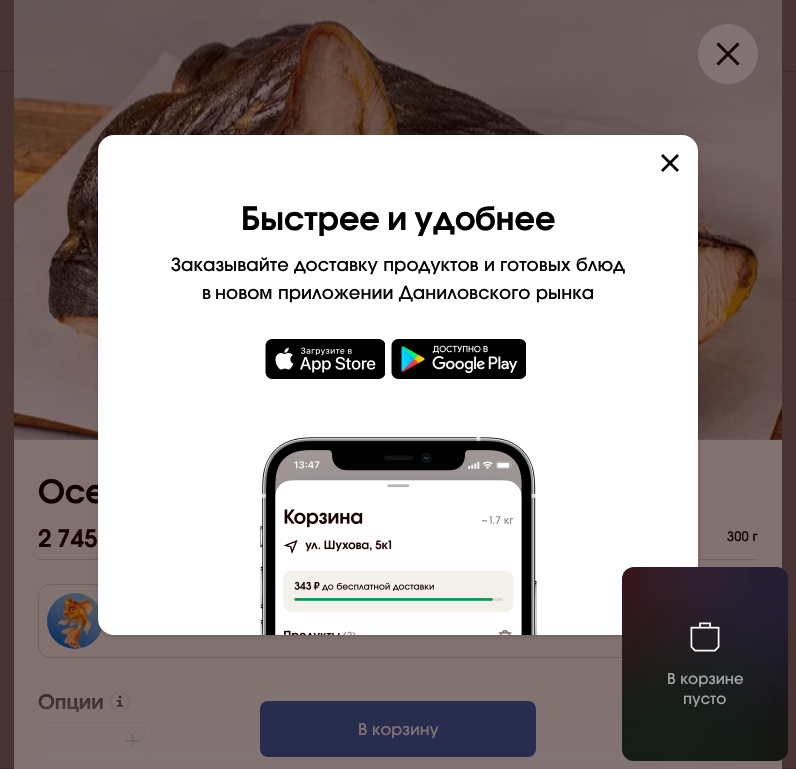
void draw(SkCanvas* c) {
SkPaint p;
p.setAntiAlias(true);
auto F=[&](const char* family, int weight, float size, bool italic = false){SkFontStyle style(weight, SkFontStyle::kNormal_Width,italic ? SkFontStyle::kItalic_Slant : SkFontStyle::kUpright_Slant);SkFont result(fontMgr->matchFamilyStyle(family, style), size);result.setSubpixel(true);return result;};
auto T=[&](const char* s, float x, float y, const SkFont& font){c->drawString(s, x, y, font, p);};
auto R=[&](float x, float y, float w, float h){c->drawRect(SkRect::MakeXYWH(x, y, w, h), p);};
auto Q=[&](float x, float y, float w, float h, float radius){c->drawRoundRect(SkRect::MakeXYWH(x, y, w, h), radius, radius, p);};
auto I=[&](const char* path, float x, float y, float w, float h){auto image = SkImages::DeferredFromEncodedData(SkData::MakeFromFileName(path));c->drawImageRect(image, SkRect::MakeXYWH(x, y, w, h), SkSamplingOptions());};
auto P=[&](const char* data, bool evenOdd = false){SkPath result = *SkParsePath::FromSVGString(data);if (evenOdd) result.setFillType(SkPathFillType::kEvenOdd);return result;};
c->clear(0xff483332);
p.setColor(0xff412c2b);
R(0,300,796,1);
R(0,768,796,1);
p.setColor(0xff817270);
R(14,439,768,330);
p.setColor(0xff412c2b);
R(0,71,796,1);
I("4.png",14,0,768,440);
p.setColor(0xff716160);
R(38,559,720,1);
p.setStroke(true);
p.setStrokeWidth(1);
c->drawRoundRect(SkRect::MakeXYWH(38.5,584.5,719,73),11.5,11.5,p);
I("5.png",47,593,55,56);
p.setStroke(false);
p.setColor(0x1f000000);
p.setMaskFilter(SkMaskFilter::MakeBlur(kNormal_SkBlurStyle, 2));
c->drawRoundRect(SkRect::MakeXYWH(98,137,600,500),16,16,p);
p.setMaskFilter(nullptr);
p.setColor(0x40000000);
p.setMaskFilter(SkMaskFilter::MakeBlur(kNormal_SkBlurStyle, .5));
c->drawRoundRect(SkRect::MakeXYWH(98,135,600,500),16,16,p);
p.setMaskFilter(nullptr);
auto f1 = F("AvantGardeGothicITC",600,32);
p.setColor(0xff0e0000);
T("Осе",38,503,f1);
p.setColor(0xffffffff);
Q(98,135,600,500,16);
p.setStroke(true);
p.setStrokeWidth(2.7);
p.setStrokeJoin(SkPaint::kRound_Join);
p.setColor(0xff000000);
c->drawPath(P("M662 155l16 16m0-16l-16 16"),p);
p.setStroke(false);
T("Быстрее и удобнее",241,230,f1);
auto f2 = F("AvantGardeGothicITC",500,18);
T("Заказывайте доставку продуктов и",171,271,f2);
T("готовых блюд",500,271,f2);
T("в",202,299,f2);
T("новом приложении Даниловского рынка",215,299,f2);
I("1.png",265,339,120,40);
I("2.png",391,339,135,40);
I("3.png",260,437,277,198);
p.setColor(0xff817373);
c->drawCircle(728,54,30,p);
p.setStroke(true);
p.setStrokeWidth(3);
p.setColor(0xff0e0000);
c->drawPath(P("M717.5 43.5l21 21m0-21l-21 21"),p);
auto f3 = F("AvantGardeGothicITC",600,24);
p.setStroke(false);
p.setColor(0xff190000);
T("2 745",38,547,f3);
auto f4 = F("AvantGardeGothicITC",500,13);
p.setColor(0xff0e0000);
T("300 г",727,541,f4);
auto f5 = F("AvantGardeGothicITC",600,20);
T("Опции",38,709,f5);
I("6.png",110,692,20,20);
p.setStroke(true);
p.setStrokeWidth(1);
p.setStrokeJoin(SkPaint::kMiter_Join);
p.setColor(0xff6f646a);
c->drawRoundRect(SkRect::MakeXYWH(38.5,722.5,113,37),7.5,7.5,p);
p.setStrokeWidth(2);
p.setStrokeCap(SkPaint::kSquare_Cap);
p.setColor(0xff282d4f);
c->drawPath(P("M132.5 735.5v11m6-5.5h-11.5"),p);
p.setStroke(false);
{
const SkColor colors[] = {0x00817373,0xff817373};
const float stops[] = {0,.93};
const SkPoint ends[] = {{398,657}, {398,769}};
p.setShader(SkGradientShader::MakeLinear(ends, colors, stops, 2, SkTileMode::kClamp));
p.setAlpha(255);
}
R(38,692,720,77);
p.setShader(nullptr);
p.setColor(0xff282d4f);
Q(260,701,276,56,8);
auto f6 = F("AvantGardeGothicITC",500,16);
p.setColor(0xff817373);
T("В корзину",358,735,f6);
p.setColor(0xff190000);
Q(622,567,166,194,12);
I("7.png",622,567,166,194);
I("8.png",690,622,30,30);
auto f7 = F("AvantGardeGothicITC",500,15);
p.setColor(0xffa3a5a5);
T("В корзине",667,684,f7);
T("пусто",683,704,f7);
}
